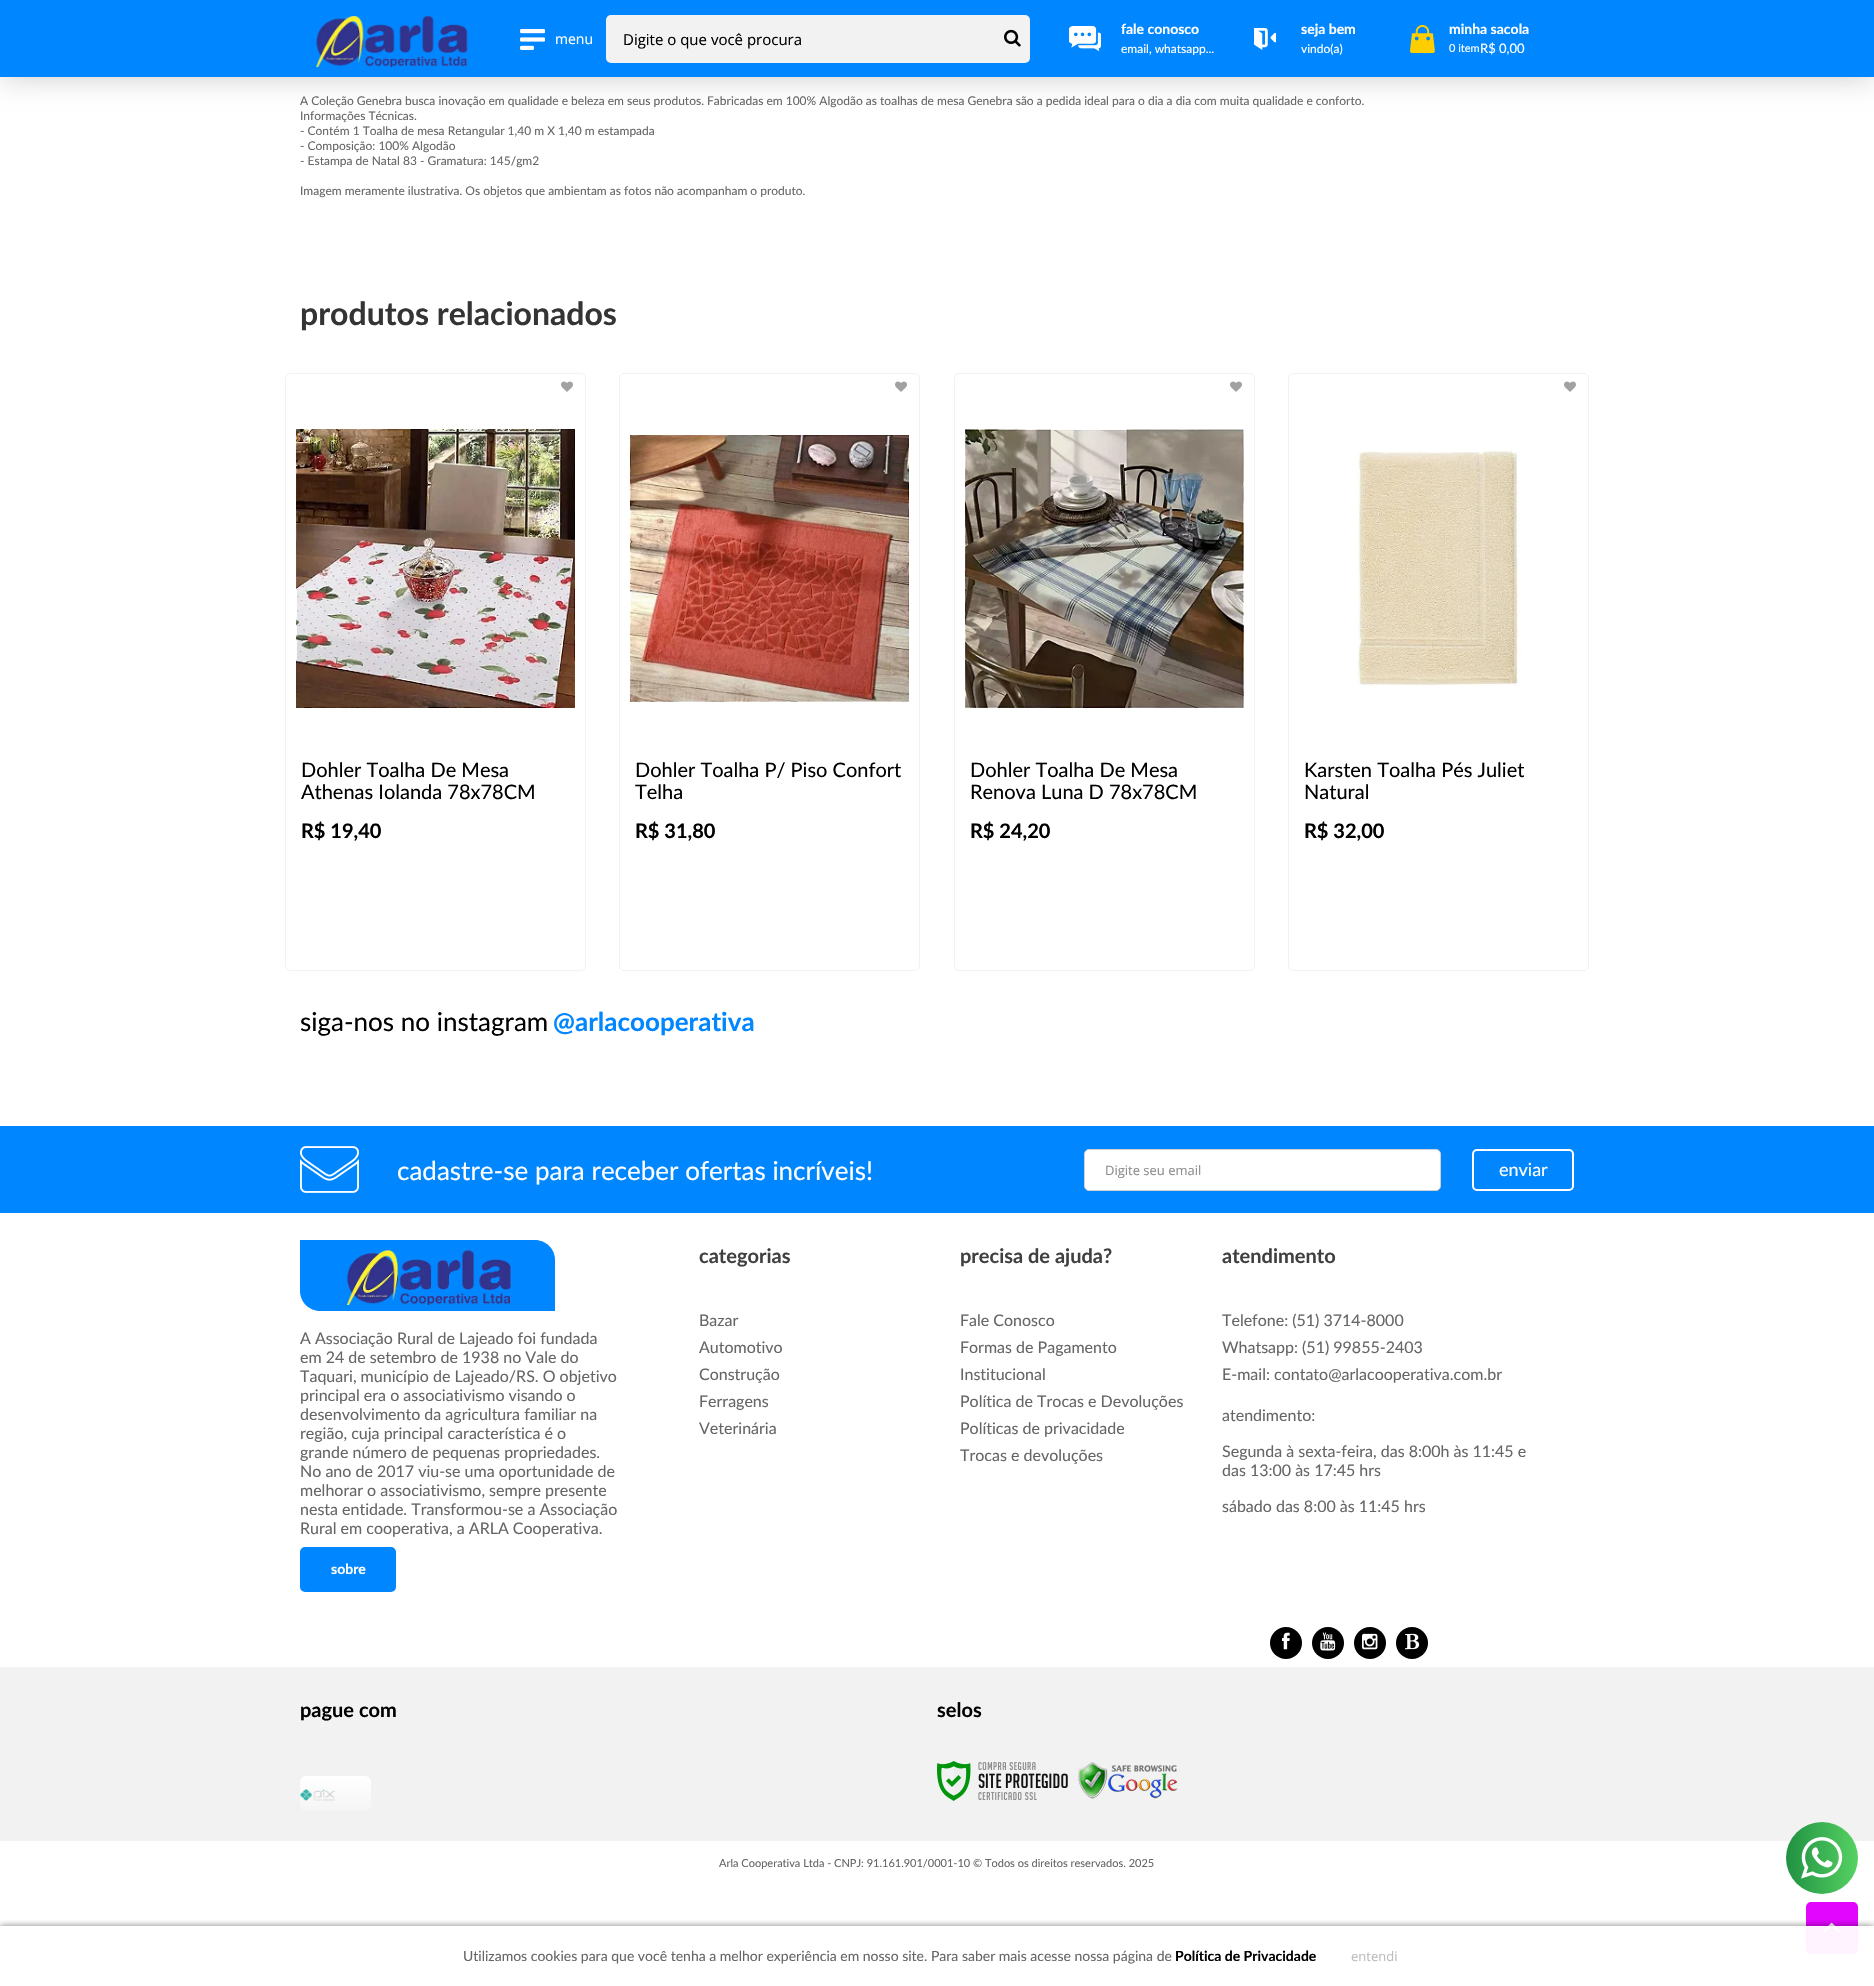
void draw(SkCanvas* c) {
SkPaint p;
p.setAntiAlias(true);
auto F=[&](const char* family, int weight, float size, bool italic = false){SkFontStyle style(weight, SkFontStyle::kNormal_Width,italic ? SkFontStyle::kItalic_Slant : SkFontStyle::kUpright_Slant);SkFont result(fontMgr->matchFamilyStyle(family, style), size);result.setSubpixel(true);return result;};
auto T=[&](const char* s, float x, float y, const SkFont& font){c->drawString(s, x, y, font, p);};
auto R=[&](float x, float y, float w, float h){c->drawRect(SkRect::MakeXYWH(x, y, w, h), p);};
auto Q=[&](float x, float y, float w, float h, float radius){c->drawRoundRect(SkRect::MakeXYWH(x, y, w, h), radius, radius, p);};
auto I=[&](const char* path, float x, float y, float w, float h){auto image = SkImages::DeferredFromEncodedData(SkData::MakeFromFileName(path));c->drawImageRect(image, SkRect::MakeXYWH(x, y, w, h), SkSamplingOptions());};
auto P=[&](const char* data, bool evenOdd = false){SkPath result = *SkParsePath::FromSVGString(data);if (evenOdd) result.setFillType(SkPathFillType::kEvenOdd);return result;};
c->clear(0xffffffff);
p.setColor(0x33000000);
p.setMaskFilter(SkMaskFilter::MakeBlur(kNormal_SkBlurStyle, 15));
c->drawRect(SkRect::MakeXYWH(0,0,1874,77),p);
p.setMaskFilter(nullptr);
p.setColor(0xff0086ff);
R(0,0,1874,77);
I("1.png",316,16,152,51);
I("2.png",520,29,25,21);
auto f1 = F("Open Sans",400,14);
p.setColor(0xffffffff);
T("menu",555,44,f1);
p.setColor(0xfff2f2f2);
Q(606,15,424,48,5);
auto f2 = F("Open Sans",400,15);
p.setColor(0xff000000);
T("Digite o que você procura",623,45,f2);
I("3.png",1004,29,17,18);
I("4.png",1069,26,32,26);
auto f3 = F("Lato",700,14);
p.setColor(0xffffffff);
T("fale conosco",1121,34,f3);
auto f4 = F("Lato",400,12);
T("email, whatsapp...",1121,53,f4);
I("5.png",1254,28,22,22);
T("seja bem",1301,34,f3);
T("vindo(a)",1301,53,f4);
I("6.png",1410,25,25,28);
T("minha sacola",1449,34,f3);
auto f5 = F("Lato",400,11);
T("0 item",1449,52,f5);
auto f6 = F("Lato",400,13);
T("R$ 0,00",1480,53,f6);
p.setColor(0xff666666);
T("A Coleção Genebra busca inovação em qualidade e beleza em seus produtos. Fabricadas em 100% Algodão as toalhas de mesa Genebra são a pedida ideal para o dia a dia com muita qualidade e conforto.",300,105,f4);
T("Informações Técnicas.",300,120,f4);
T("- Contém 1 Toalha de mesa Retangular 1,40 m X 1,40 m estampada",300,135,f4);
T("- Composição: 100% Algodão",300,150,f4);
T("- Estampa de Natal 83 - Gramatura: 145/gm2",300,165,f4);
T("Imagem meramente ilustrativa. Os objetos que ambientam as fotos não acompanham o produto.",300,195,f4);
auto f7 = F("Lato",700,32);
p.setColor(0xff343434);
T("produtos relacionados",300,325,f7);
p.setStroke(true);
p.setStrokeWidth(1);
p.setColor(0xfff2f2f2);
c->drawRoundRect(SkRect::MakeXYWH(285.5,373.5,300,597),4.5,4.5,p);
I("7.png",561,381,12,11);
I("8.png",296,429,279,279);
auto f8 = F("Lato",400,20);
p.setStroke(false);
p.setColor(0xff000000);
T("Dohler Toalha De Mesa",301,777,f8);
T("Athenas Iolanda 78x78CM",301,799,f8);
auto f9 = F("Lato",700,20);
T("R$ 19,40",301,838,f9);
p.setStroke(true);
p.setColor(0xfff2f2f2);
c->drawRoundRect(SkRect::MakeXYWH(619.5,373.5,300,597),4.5,4.5,p);
I("7.png",895,381,12,11);
I("9.png",630,435,279,267);
p.setStroke(false);
p.setColor(0xff000000);
T("Dohler Toalha P/ Piso Confort",635,777,f8);
T("Telha",635,799,f8);
T("R$ 31,80",635,838,f9);
p.setStroke(true);
p.setColor(0xfff2f2f2);
c->drawRoundRect(SkRect::MakeXYWH(954.5,373.5,300,597),4.5,4.5,p);
I("7.png",1230,381,12,11);
I("10.png",965,429,279,279);
p.setStroke(false);
p.setColor(0xff000000);
T("Dohler Toalha De Mesa",970,777,f8);
T("Renova Luna D 78x78CM",970,799,f8);
T("R$ 24,20",970,838,f9);
p.setStroke(true);
p.setColor(0xfff2f2f2);
c->drawRoundRect(SkRect::MakeXYWH(1288.5,373.5,300,597),4.5,4.5,p);
I("7.png",1564,381,12,11);
I("11.png",1357,450,164,236);
p.setStroke(false);
p.setColor(0xff000000);
T("Karsten Toalha Pés Juliet",1304,777,f8);
T("Natural",1304,799,f8);
T("R$ 32,00",1304,838,f9);
auto f10 = F("Lato",400,26);
T("siga-nos no instagram",300,1031,f10);
auto f11 = F("Lato",700,26);
p.setColor(0xff0086ff);
T("@arlacooperativa",553,1031,f11);
R(0,1126,1874,87);
I("12.png",300,1146,59,47);
p.setColor(0xffffffff);
T("cadastre-se para receber ofertas incríveis!",397,1180,f10);
c->drawRoundRect(SkRect::MakeXYWH(1084.5,1149.5,356,41),4.5,4.5,p);
p.setStroke(true);
p.setColor(0xffd1d1d1);
c->drawRoundRect(SkRect::MakeXYWH(1084.5,1149.5,356,41),4.5,4.5,p);
auto f12 = F("Open Sans",400,13);
p.setStroke(false);
p.setColor(0xff8d8d8d);
T("Digite seu email",1105,1175,f12);
p.setStroke(true);
p.setStrokeWidth(2);
p.setColor(0xffffffff);
c->drawRoundRect(SkRect::MakeXYWH(1473,1150,100,40),4,4,p);
auto f13 = F("Lato",400,18);
p.setStroke(false);
T("enviar",1499,1176,f13);
p.setColor(0xff0086ff);
c->drawPath(P("M300 1240h235c11 0 20 9 20 20v51h-235c-11 0-20-9-20-20z"),p);
I("13.png",346,1250,165,55);
auto f14 = F("Lato",400,16);
p.setColor(0xff666666);
T("A Associação Rural de Lajeado foi fundada",300,1344,f14);
T("em 24 de setembro de 1938 no Vale do",300,1363,f14);
T("Taquari, município de Lajeado/RS. O objetivo",300,1382,f14);
T("principal era o associativismo visando o",300,1401,f14);
T("desenvolvimento da agricultura familiar na",300,1420,f14);
T("região, cuja principal característica é o",300,1439,f14);
T("grande número de pequenas propriedades.",300,1458,f14);
T("No ano de 2017 viu-se uma oportunidade de",300,1477,f14);
T("melhorar o associativismo, sempre presente",300,1496,f14);
T("nesta entidade. Transformou-se a Associação",300,1515,f14);
T("Rural em cooperativa, a ARLA Cooperativa.",300,1534,f14);
p.setColor(0xff0086ff);
c->drawRoundRect(SkRect::MakeXYWH(301,1548,94,43),4,4,p);
p.setStroke(true);
c->drawRoundRect(SkRect::MakeXYWH(301,1548,94,43),4,4,p);
p.setStroke(false);
p.setColor(0xffffffff);
T("sobre",331,1574,f3);
p.setColor(0xff404040);
T("categorias",699,1263,f9);
p.setColor(0xff666666);
T("Bazar",699,1326,f14);
T("Automotivo",699,1353,f14);
T("Construção",699,1380,f14);
T("Ferragens",699,1407,f14);
T("Veterinária",699,1434,f14);
p.setColor(0xff404040);
T("precisa de ajuda?",960,1263,f9);
p.setColor(0xff666666);
T("Fale Conosco",960,1326,f14);
T("Formas de Pagamento",960,1353,f14);
T("Institucional",960,1380,f14);
T("Política de Trocas e Devoluções",960,1407,f14);
T("Políticas de privacidade",960,1434,f14);
T("Trocas e devoluções",960,1461,f14);
p.setColor(0xff404040);
T("atendimento",1222,1263,f9);
p.setColor(0xff666666);
T("Telefone: (51) 3714-8000",1222,1326,f14);
T("Whatsapp: (51) 99855-2403",1222,1353,f14);
T("E-mail: contato@arlacooperativa.com.br",1222,1380,f14);
T("atendimento:",1222,1421,f14);
T("Segunda à sexta-feira, das 8:00h às 11:45 e",1222,1457,f14);
T("das 13:00 às 17:45 hrs",1222,1476,f14);
T("sábado das 8:00 às 11:45 hrs",1222,1512,f14);
p.setColor(0xff000000);
c->drawCircle(1286,1643,16,p);
I("14.png",1282,1632,8,18);
c->drawCircle(1328,1643,16,p);
I("15.png",1320,1632,16,19);
c->drawCircle(1370,1643,16,p);
I("16.png",1362,1633,16,17);
c->drawCircle(1412,1643,16,p);
I("17.png",1405,1633,15,17);
p.setColor(0xfff2f2f2);
R(0,1667,1874,174);
p.setColor(0xff000000);
T("pague com",300,1717,f9);
{
const SkColor colors[] = {0xffffffff,0xfff5f5f5};
const float stops[] = {0,1};
const SkPoint ends[] = {{336,1776}, {336,1811}};
p.setShader(SkGradientShader::MakeLinear(ends, colors, stops, 2, SkTileMode::kClamp));
p.setAlpha(255);
}
Q(300,1776,71,35,6);
I("18.png",300,1789,35,12);
p.setShader(nullptr);
p.setColor(0xff000000);
T("selos",937,1717,f9);
I("19.png",937,1761,131,40);
I("20.png",1078,1762,100,37);
p.setColor(0xff666666);
T("Arla Cooperativa Ltda - CNPJ: 91.161.901/0001-10 © Todos os direitos reservados. 2025",719,1867,f5);
{
const SkColor colors[] = {0xff209142,0xff56d263};
const float stops[] = {0,1};
const SkPoint ends[] = {{1786,1858}, {1858,1858}};
p.setShader(SkGradientShader::MakeLinear(ends, colors, stops, 2, SkTileMode::kClamp));
p.setAlpha(255);
}
c->drawCircle(1822,1858,36,p);
I("21.png",1801,1837,42,42);
p.setShader(nullptr);
p.setColor(0xffe306ff);
Q(1806,1902,52,52,5);
I("22.png",1823,1922,17,11);
c->save();
c->clipRect(SkRect::MakeXYWH(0,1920,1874,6));
p.setColor(0x80000000);
p.setMaskFilter(SkMaskFilter::MakeBlur(kNormal_SkBlurStyle, 3.5));
c->drawRect(SkRect::MakeXYWH(0,1926,1874,60),p);
p.setMaskFilter(nullptr);
c->restore();
p.setColor(0xf2ffffff);
R(1806,1926,52,28);
auto f15 = F("Lato",400,14);
p.setColor(0xff666666);
T("Utilizamos cookies para que você tenha a melhor experiência em nosso site. Para saber mais acesse nossa página de",463,1961,f15);
p.setColor(0xff000000);
T("Política de Privacidade",1175,1961,f3);
p.setColor(0xffbcbcbc);
T("entendi",1351,1961,f12);
}
